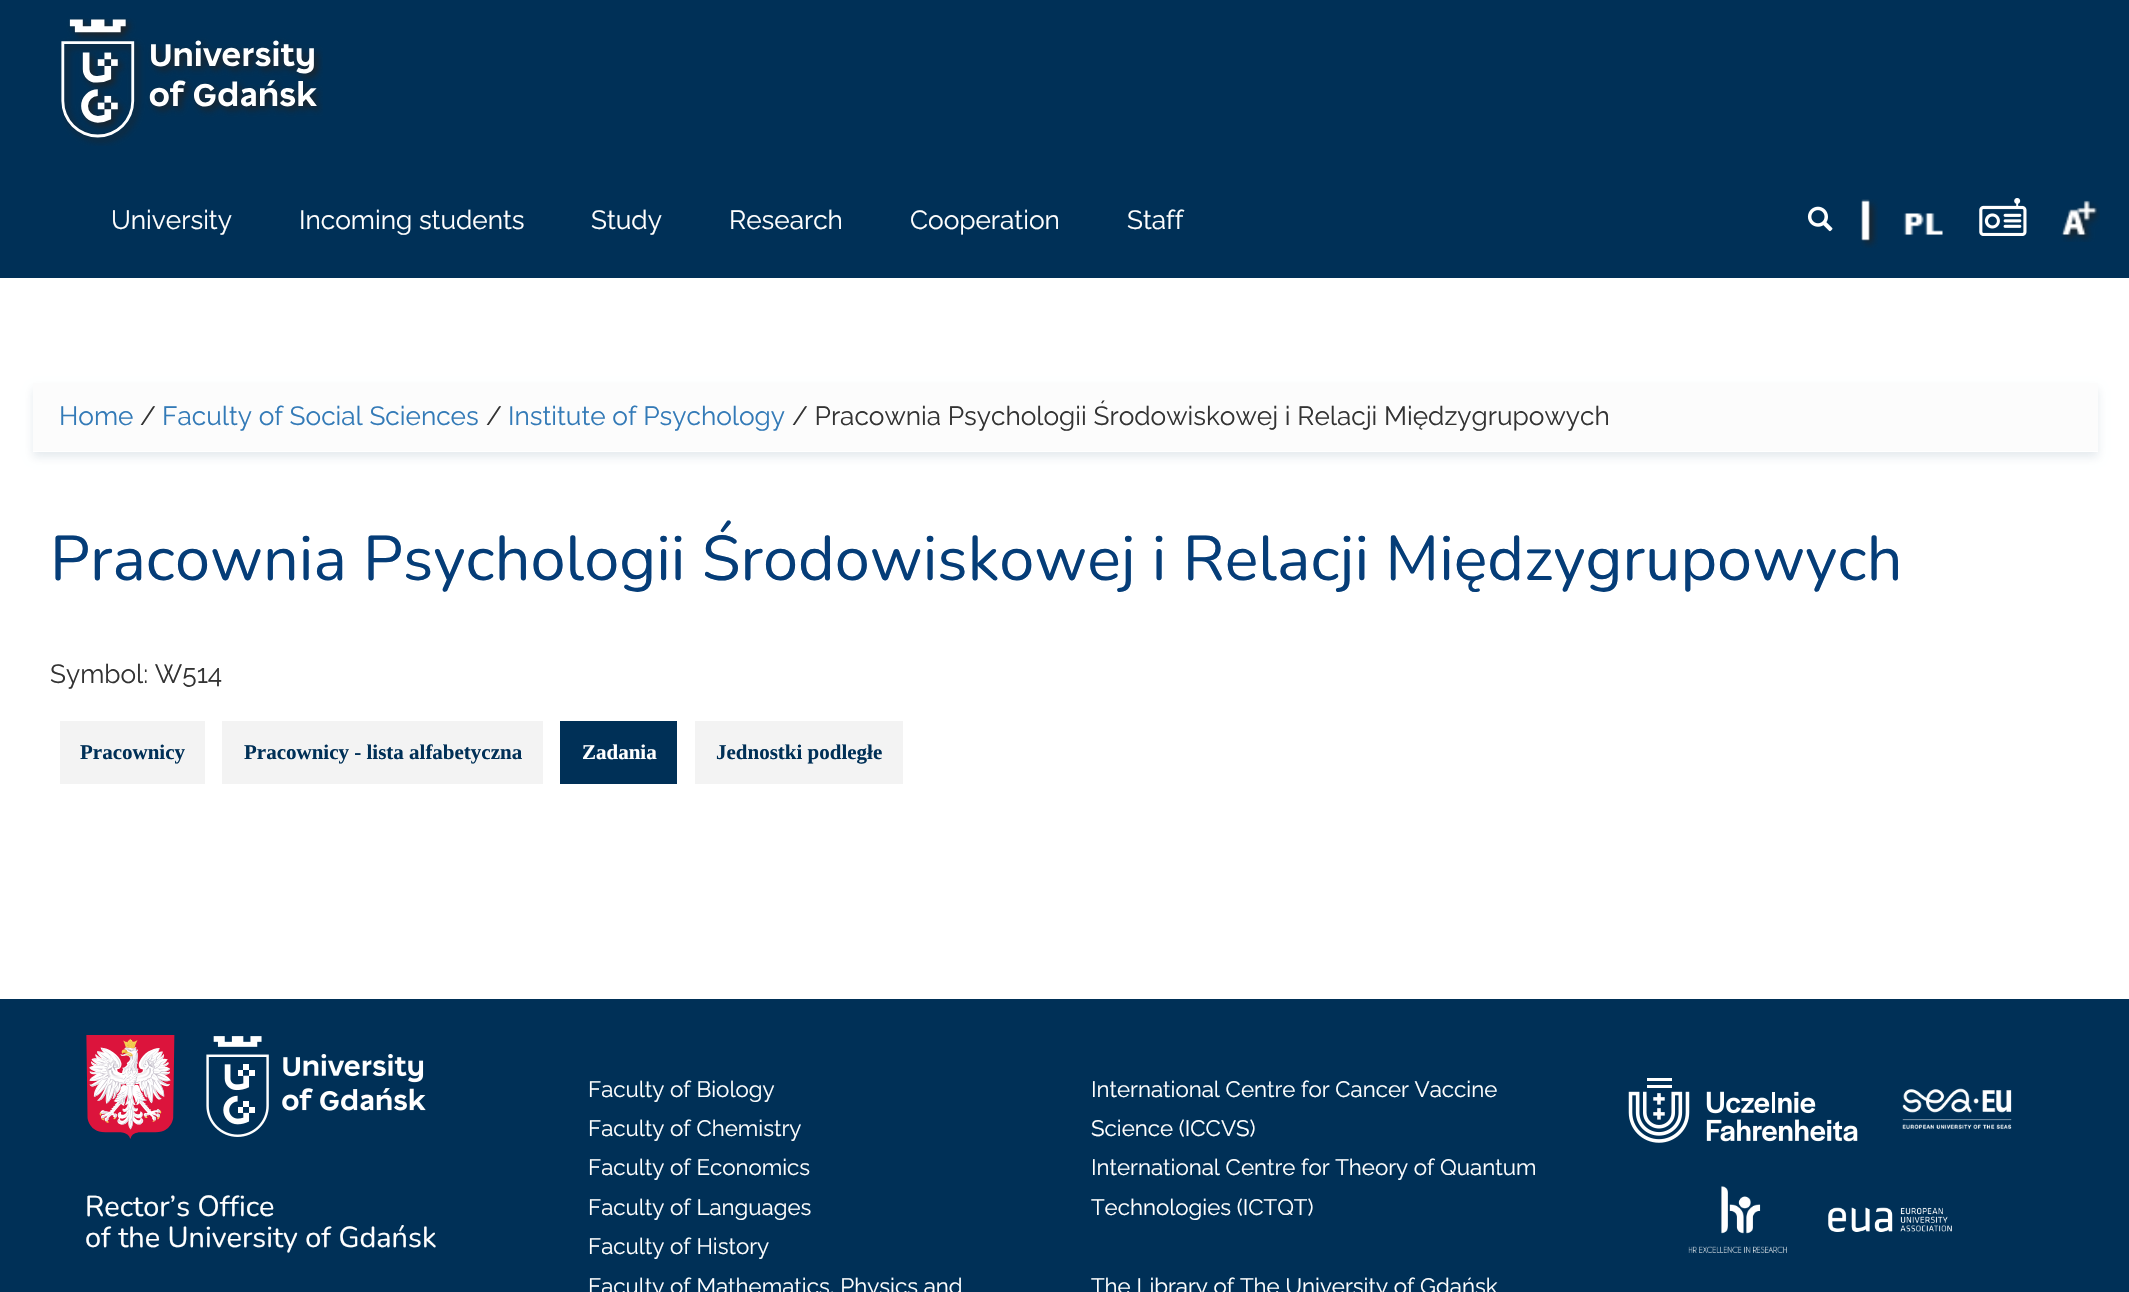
void draw(SkCanvas* c) {
SkPaint p;
p.setAntiAlias(true);
auto F=[&](const char* family, int weight, float size, bool italic = false){SkFontStyle style(weight, SkFontStyle::kNormal_Width,italic ? SkFontStyle::kItalic_Slant : SkFontStyle::kUpright_Slant);SkFont result(fontMgr->matchFamilyStyle(family, style), size);result.setSubpixel(true);return result;};
auto T=[&](const char* s, float x, float y, const SkFont& font){c->drawString(s, x, y, font, p);};
auto R=[&](float x, float y, float w, float h){c->drawRect(SkRect::MakeXYWH(x, y, w, h), p);};
auto I=[&](const char* path, float x, float y, float w, float h){auto image = SkImages::DeferredFromEncodedData(SkData::MakeFromFileName(path));c->drawImageRect(image, SkRect::MakeXYWH(x, y, w, h), SkSamplingOptions());};
auto P=[&](const char* data, bool evenOdd = false){SkPath result = *SkParsePath::FromSVGString(data);if (evenOdd) result.setFillType(SkPathFillType::kEvenOdd);return result;};
c->clear(0xffffffff);
p.setColor(0xff003057);
R(0,0,2129,278);
I("1.png",60,18,263,128);
auto f1 = F("Raleway",400,26.25);
p.setColor(0xffffffff);
T("University",111,229,f1);
T("Incoming students",299,229,f1);
T("Study",591,229,f1);
T("Research",729,229,f1);
T("Cooperation",910,229,f1);
T("Staff",1127,229,f1);
I("2.png",1807,206,26,26);
I("3.png",1860,199,18,49);
I("4.png",1903,213,40,22);
I("5.png",1979,198,48,38);
I("6.png",2061,200,39,42);
c->save();
c->clipPath(P("M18 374h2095v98h-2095zm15 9h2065v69h-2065z",true),true);
p.setColor(0x1a002f57);
p.setMaskFilter(SkMaskFilter::MakeBlur(kNormal_SkBlurStyle, 4.5));
c->drawRect(SkRect::MakeXYWH(33,389,2065,68),p);
p.setMaskFilter(nullptr);
c->restore();
p.setColor(0x73f9f9f9);
R(33,383,2065,68);
p.setColor(0xff337ab7);
T("Home",59,425,f1);
p.setColor(0xff333333);
T("/",140,425,f1);
p.setColor(0xff337ab7);
T("Faculty of Social Sciences",162,425,f1);
p.setColor(0xff333333);
T("/",486,425,f1);
p.setColor(0xff337ab7);
T("Institute of Psychology",508,425,f1);
p.setColor(0xff333333);
T("/ Pracownia Psychologii Środowiskowej i Relacji Międzygrupowych",792,425,f1);
auto f2 = F("Nunito",400,63);
p.setColor(0xff053d78);
T("Pracownia Psychologii Środowiskowej i Relacji Międzygrupowych",50,580,f2);
p.setColor(0xff333333);
T("Symbol: W514",50,683,f1);
p.setColor(0xfff3f3f3);
R(60,721,145,63);
auto f3 = F("Liberation Serif",700,21);
p.setColor(0xff003057);
T("Pracownicy",80,759,f3);
p.setColor(0xfff3f3f3);
R(222,721,321,63);
p.setColor(0xff003057);
T("Pracownicy - lista alfabetyczna",244,759,f3);
R(560,721,117,63);
p.setColor(0xffffffff);
T("Zadania",582,759,f3);
p.setColor(0xfff3f3f3);
R(695,721,208,63);
p.setColor(0xff003057);
T("Jednostki podległe",716,759,f3);
R(0,999,2129,293);
I("7.png",86,1035,89,104);
I("8.png",206,1036,220,101);
auto f4 = F("Nunito",400,28.9);
p.setColor(0xffffffff);
T("Rector’s Office",85,1216,f4);
T("of the University of Gdańsk",85,1247,f4);
auto f5 = F("Raleway",400,22.3);
T("Faculty of Biology",588,1097,f5);
T("Faculty of Chemistry",588,1136,f5);
T("Faculty of Economics",588,1175,f5);
T("Faculty of Languages",588,1215,f5);
T("Faculty of History",588,1254,f5);
T("Faculty of Mathematics, Physics and",588,1294,f5);
T("International Centre for Cancer Vaccine",1091,1097,f5);
T("Science (ICCVS)",1091,1136,f5);
T("International Centre for Theory of Quantum",1091,1175,f5);
T("Technologies (ICTQT)",1091,1215,f5);
T("The Library of The University of Gdańsk",1091,1294,f5);
I("9.png",1628,1078,230,65);
I("10.png",1902,1088,110,41);
I("11.png",1688,1186,99,67);
I("12.png",1828,1207,124,25);
}
